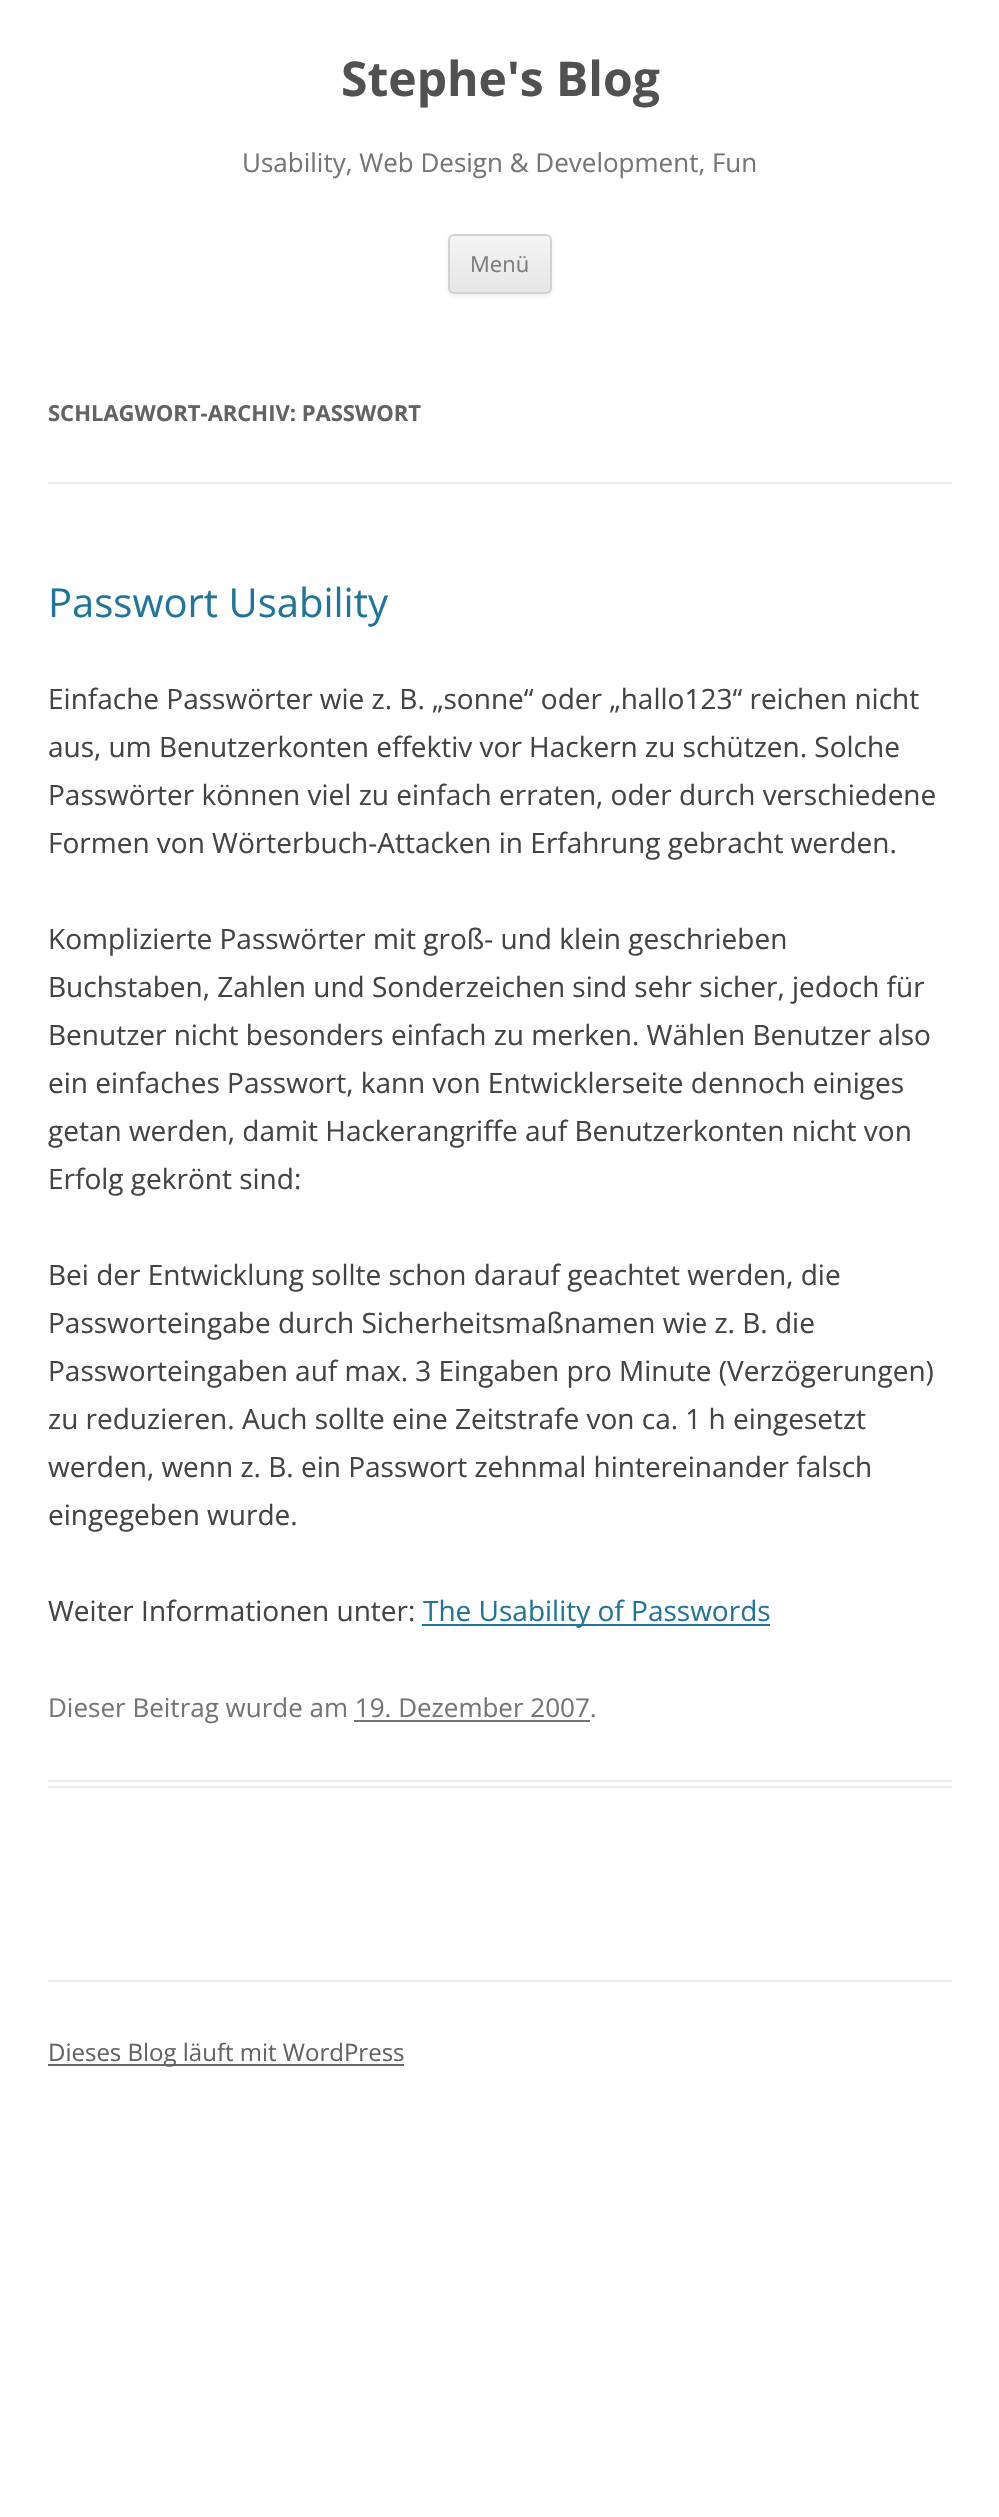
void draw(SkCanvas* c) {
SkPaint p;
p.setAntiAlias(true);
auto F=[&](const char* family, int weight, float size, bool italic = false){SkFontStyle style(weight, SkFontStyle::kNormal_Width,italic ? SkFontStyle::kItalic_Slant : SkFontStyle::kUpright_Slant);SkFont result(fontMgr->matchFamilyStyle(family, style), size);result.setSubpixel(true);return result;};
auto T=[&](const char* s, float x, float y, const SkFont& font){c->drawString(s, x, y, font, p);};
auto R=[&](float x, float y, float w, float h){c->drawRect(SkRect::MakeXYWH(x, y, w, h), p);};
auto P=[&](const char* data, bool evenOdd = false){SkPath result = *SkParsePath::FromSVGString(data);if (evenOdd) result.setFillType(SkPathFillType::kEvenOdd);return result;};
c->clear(0xffffffff);
auto f1 = F("Open Sans",700,48);
p.setColor(0xff515151);
T("Stephe's Blog",341,96,f1);
auto f2 = F("Open Sans",400,26);
p.setColor(0xff757575);
T("Usability, Web Design & Development, Fun",242,172,f2);
p.setColor(0x1a404040);
p.setMaskFilter(SkMaskFilter::MakeBlur(kNormal_SkBlurStyle, 2));
c->drawRoundRect(SkRect::MakeXYWH(448,236,104,60),6,6,p);
p.setMaskFilter(nullptr);
c->save();
c->clipPath(P("M454 234h92c3.5 0 6 2.5 6 6v48c0 3.5-2.5 6-6 6h-92c-3.5 0-6-2.5-6-6v-48c0-3.5 2.5-6 6-6z"),true);
{
const SkColor colors[] = {0xfff4f4f4,0xffe6e6e6};
const float stops[] = {0,1};
const SkPoint ends[] = {{500,236}, {500,292}};
p.setShader(SkGradientShader::MakeLinear(ends, colors, stops, 2, SkTileMode::kClamp));
p.setAlpha(255);
}
R(448,236,104,56);
c->restore();
p.setStroke(true);
p.setStrokeWidth(2);
p.setShader(nullptr);
p.setColor(0xffd2d2d2);
c->drawRoundRect(SkRect::MakeXYWH(449,235,102,58),5,5,p);
auto f3 = F("Open Sans",400,22);
p.setStroke(false);
p.setColor(0xff7c7c7c);
T("Menü",470,272,f3);
p.setColor(0xffededed);
R(48,482,904,2);
auto f4 = F("Open Sans",700,22);
p.setColor(0xff636363);
T("SCHLAGWORT-ARCHIV: PASSWORT",48,421,f4);
p.setColor(0xffededed);
R(48,1780,904,2);
R(48,1786,904,2);
auto f5 = F("Open Sans",400,40);
p.setColor(0xff21759b);
T("Passwort Usability",48,617,f5);
auto f6 = F("Open Sans",400,28);
p.setColor(0xff444444);
T("Einfache Passwörter wie z. B. „sonne“ oder „hallo123“ reichen nicht",48,709,f6);
T("aus, um Benutzerkonten effektiv vor Hackern zu schützen. Solche",48,757,f6);
T("Passwörter können viel zu einfach erraten, oder durch verschiedene",48,805,f6);
T("Formen von Wörterbuch-Attacken in Erfahrung gebracht werden.",48,853,f6);
T("Komplizierte Passwörter mit groß- und klein geschrieben",48,949,f6);
T("Buchstaben, Zahlen und Sonderzeichen sind sehr sicher, jedoch für",48,997,f6);
T("Benutzer nicht besonders einfach zu merken. Wählen Benutzer also",48,1045,f6);
T("ein einfaches Passwort, kann von Entwicklerseite dennoch einiges",48,1093,f6);
T("getan werden, damit Hackerangriffe auf Benutzerkonten nicht von",48,1141,f6);
T("Erfolg gekrönt sind:",48,1189,f6);
T("Bei der Entwicklung sollte schon darauf geachtet werden, die",48,1285,f6);
T("Passworteingabe durch Sicherheitsmaßnamen wie z. B. die",48,1333,f6);
T("Passworteingaben auf max. 3 Eingaben pro Minute (Verzögerungen)",48,1381,f6);
T("zu reduzieren. Auch sollte eine Zeitstrafe von ca. 1 h eingesetzt",48,1429,f6);
T("werden, wenn z. B. ein Passwort zehnmal hintereinander falsch",48,1477,f6);
T("eingegeben wurde.",48,1525,f6);
T("Weiter Informationen unter:",48,1621,f6);
p.setColor(0xff21759b);
R(422,1624,348,2);
T("The Usability of Passwords",423,1621,f6);
p.setColor(0xff757575);
T("Dieser Beitrag wurde am 19. Dezember 2007.",48,1717,f2);
R(354,1720,236,2);
p.setColor(0xffededed);
R(48,1980,904,2);
p.setColor(0xff686868);
R(48,2064,356,2);
auto f7 = F("Open Sans",400,24);
p.setColor(0xff636363);
T("Dieses Blog läuft mit WordPress",48,2061,f7);
}
